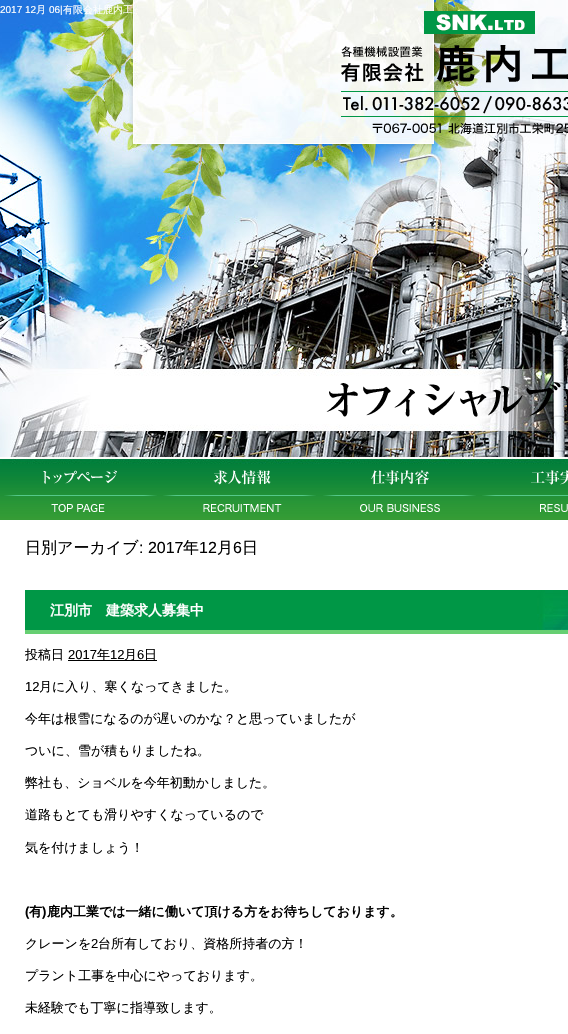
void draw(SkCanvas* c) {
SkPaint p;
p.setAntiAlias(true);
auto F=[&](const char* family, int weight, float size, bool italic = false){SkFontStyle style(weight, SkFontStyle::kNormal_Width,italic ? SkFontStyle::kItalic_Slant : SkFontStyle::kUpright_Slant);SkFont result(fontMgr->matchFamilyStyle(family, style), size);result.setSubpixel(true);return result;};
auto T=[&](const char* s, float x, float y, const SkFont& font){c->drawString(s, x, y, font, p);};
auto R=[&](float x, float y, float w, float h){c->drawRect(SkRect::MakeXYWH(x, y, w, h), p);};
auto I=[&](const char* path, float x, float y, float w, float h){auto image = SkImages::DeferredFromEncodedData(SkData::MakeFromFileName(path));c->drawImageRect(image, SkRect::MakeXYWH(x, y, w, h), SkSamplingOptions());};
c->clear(0xffffffff);
I("1.png",0,0,568,520);
I("2.png",341,11,227,123);
auto f1 = F("Liberation Sans",400,10);
p.setColor(0xffffffff);
T("2017 12",0,13,f1);
auto f2 = F("WenQuanYi Zen Hei",500,10);
T("月",36,13,f2);
T("06|",49,13,f1);
T("有限会社鹿内工",63,13,f2);
I("3.png",4,470,153,42);
I("4.png",163,470,153,42);
I("5.png",323,470,153,42);
I("6.png",482,470,86,42);
I("7.png",326,382,242,35);
auto f3 = F("WenQuanYi Zen Hei",500,16);
p.setColor(0xff000000);
T("日別アーカイブ",25,553,f3);
auto f4 = F("Liberation Sans",400,16);
T(": 2017",139,553,f4);
T("年",183,553,f3);
T("12",199,553,f4);
T("月",217,553,f3);
T("6",233,553,f4);
T("日",242,553,f3);
I("8.png",25,590,543,44);
auto f5 = F("WenQuanYi Zen Hei",700,14);
p.setColor(0xffffffff);
T("江別市　建築求人募集中",50,615,f5);
auto f6 = F("WenQuanYi Zen Hei",500,13);
p.setColor(0xff000000);
T("投稿日",25,659,f6);
auto f7 = F("Liberation Sans",400,13);
T("2017",68,659,f7);
R(68,660,89,1);
T("年",97,659,f6);
T("12",110,659,f7);
T("月",124,659,f6);
T("6",137,659,f7);
T("日",144,659,f6);
T("12",25,691,f7);
T("月に入り、寒くなってきました。",39,691,f6);
T("今年は根雪になるのが遅いのかな？と思っていましたが",25,723,f6);
T("ついに、雪が積もりましたね。",25,755,f6);
T("弊社も、ショベルを今年初動かしました。",25,787,f6);
T("道路もとても滑りやすくなっているので",25,819,f6);
T("気を付けましょう！",25,852,f6);
auto f8 = F("Liberation Sans",700,13);
T("(",25,916,f8);
auto f9 = F("WenQuanYi Zen Hei",700,13);
T("有",29,916,f9);
T(")",42,916,f8);
T("鹿内工業では一緒に働いて頂ける方をお待ちしております。",47,916,f9);
T("クレーンを",25,948,f6);
T("2",91,948,f7);
T("台所有しており、資格所持者の方！",98,948,f6);
T("プラント工事を中心にやっております。",25,980,f6);
T("未経験でも丁寧に指導致します。",25,1012,f6);
}
